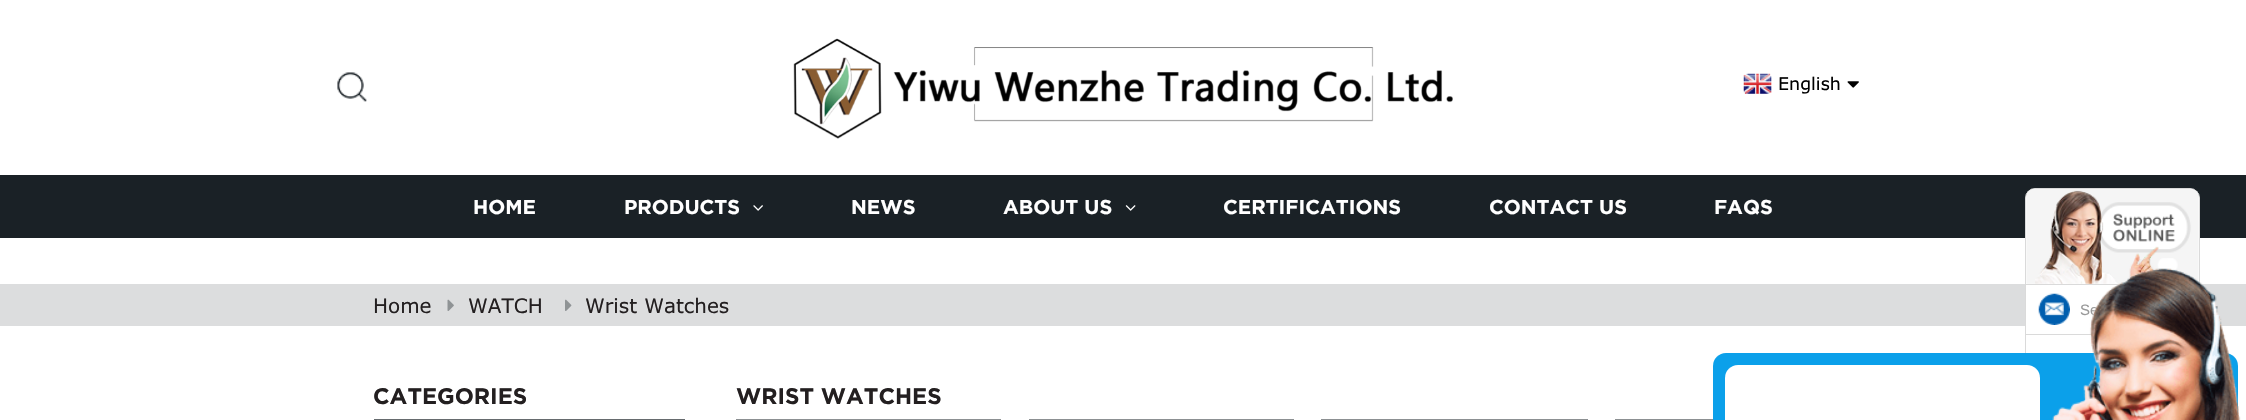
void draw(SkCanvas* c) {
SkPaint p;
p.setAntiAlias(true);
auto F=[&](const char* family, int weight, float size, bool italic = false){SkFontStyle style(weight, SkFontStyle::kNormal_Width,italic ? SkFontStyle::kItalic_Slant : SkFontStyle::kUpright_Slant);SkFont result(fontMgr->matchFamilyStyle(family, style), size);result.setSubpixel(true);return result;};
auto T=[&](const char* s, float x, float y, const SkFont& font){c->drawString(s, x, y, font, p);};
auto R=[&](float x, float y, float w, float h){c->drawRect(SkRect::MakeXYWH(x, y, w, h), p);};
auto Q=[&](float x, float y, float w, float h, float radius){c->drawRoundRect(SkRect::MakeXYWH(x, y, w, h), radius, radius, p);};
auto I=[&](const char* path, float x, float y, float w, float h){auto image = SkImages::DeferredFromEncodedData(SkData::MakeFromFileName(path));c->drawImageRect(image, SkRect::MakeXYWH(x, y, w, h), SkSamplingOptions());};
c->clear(0xffffffff);
I("1.png",337,72,30,30);
I("2.png",793,38,660,101);
I("3.png",1743,73,29,21);
auto f1 = F("Verdana",400,17.5);
p.setColor(0xff000000);
T("English",1778,90,f1);
I("4.png",1847,81,12,7);
p.setColor(0xff1a2126);
R(0,175,2246,63);
auto f2 = F("Gotham",700,20);
p.setColor(0xffffffff);
T("HOME",473,214,f2);
T("PRODUCTS",624,214,f2);
I("5.png",753,205,10,6);
T("NEWS",851,214,f2);
T("ABOUT US",1003,214,f2);
I("6.png",1125,205,11,6);
T("CERTIFICATIONS",1223,214,f2);
T("CONTACT US",1489,214,f2);
T("FAQS",1714,214,f2);
p.setColor(0xffdcddde);
R(0,284,2246,42);
auto f3 = F("Verdana",400,20);
p.setColor(0xff231f20);
T("Home",373,313,f3);
I("7.png",447,299,7,12);
T("WATCH",468,313,f3);
I("8.png",565,299,7,12);
T("Wrist Watches",585,313,f3);
p.setColor(0xffffffff);
c->drawRoundRect(SkRect::MakeXYWH(2025.5,188.5,174,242),9.5,9.5,p);
p.setStroke(true);
p.setStrokeWidth(1);
p.setColor(0xffdadada);
c->drawRoundRect(SkRect::MakeXYWH(2025.5,188.5,174,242),9.5,9.5,p);
p.setColor(0xff8c9092);
c->drawRect(SkRect::MakeXYWH(1615.5,419.5,264,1),p);
p.setStroke(false);
p.setColor(0xff0ba0ea);
Q(1713,353,525,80,13);
I("10.png",2026,189,173,95);
p.setColor(0xffdadada);
R(2026,284,95,1);
R(2026,334,66,1);
I("11.png",2038,293,32,32);
auto f4 = F("Liberation Sans",400,15);
p.setColor(0xff999999);
T("Se",2080,315,f4);
I("9.png",2052,268,189,152);
p.setColor(0xffffffff);
Q(1725,365,315,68,13);
p.setColor(0xff666b6e);
R(374,419,311,1);
auto f5 = F("Gotham",700,22.5);
p.setColor(0xff231f20);
T("CATEGORIES",373,404,f5);
T("WRIST WATCHES",736,404,f5);
p.setStroke(true);
p.setColor(0xff8c9092);
c->drawRect(SkRect::MakeXYWH(736.5,419.5,264,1),p);
c->drawRect(SkRect::MakeXYWH(1029.5,419.5,264,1),p);
c->drawRect(SkRect::MakeXYWH(1321.5,419.5,266,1),p);
}
